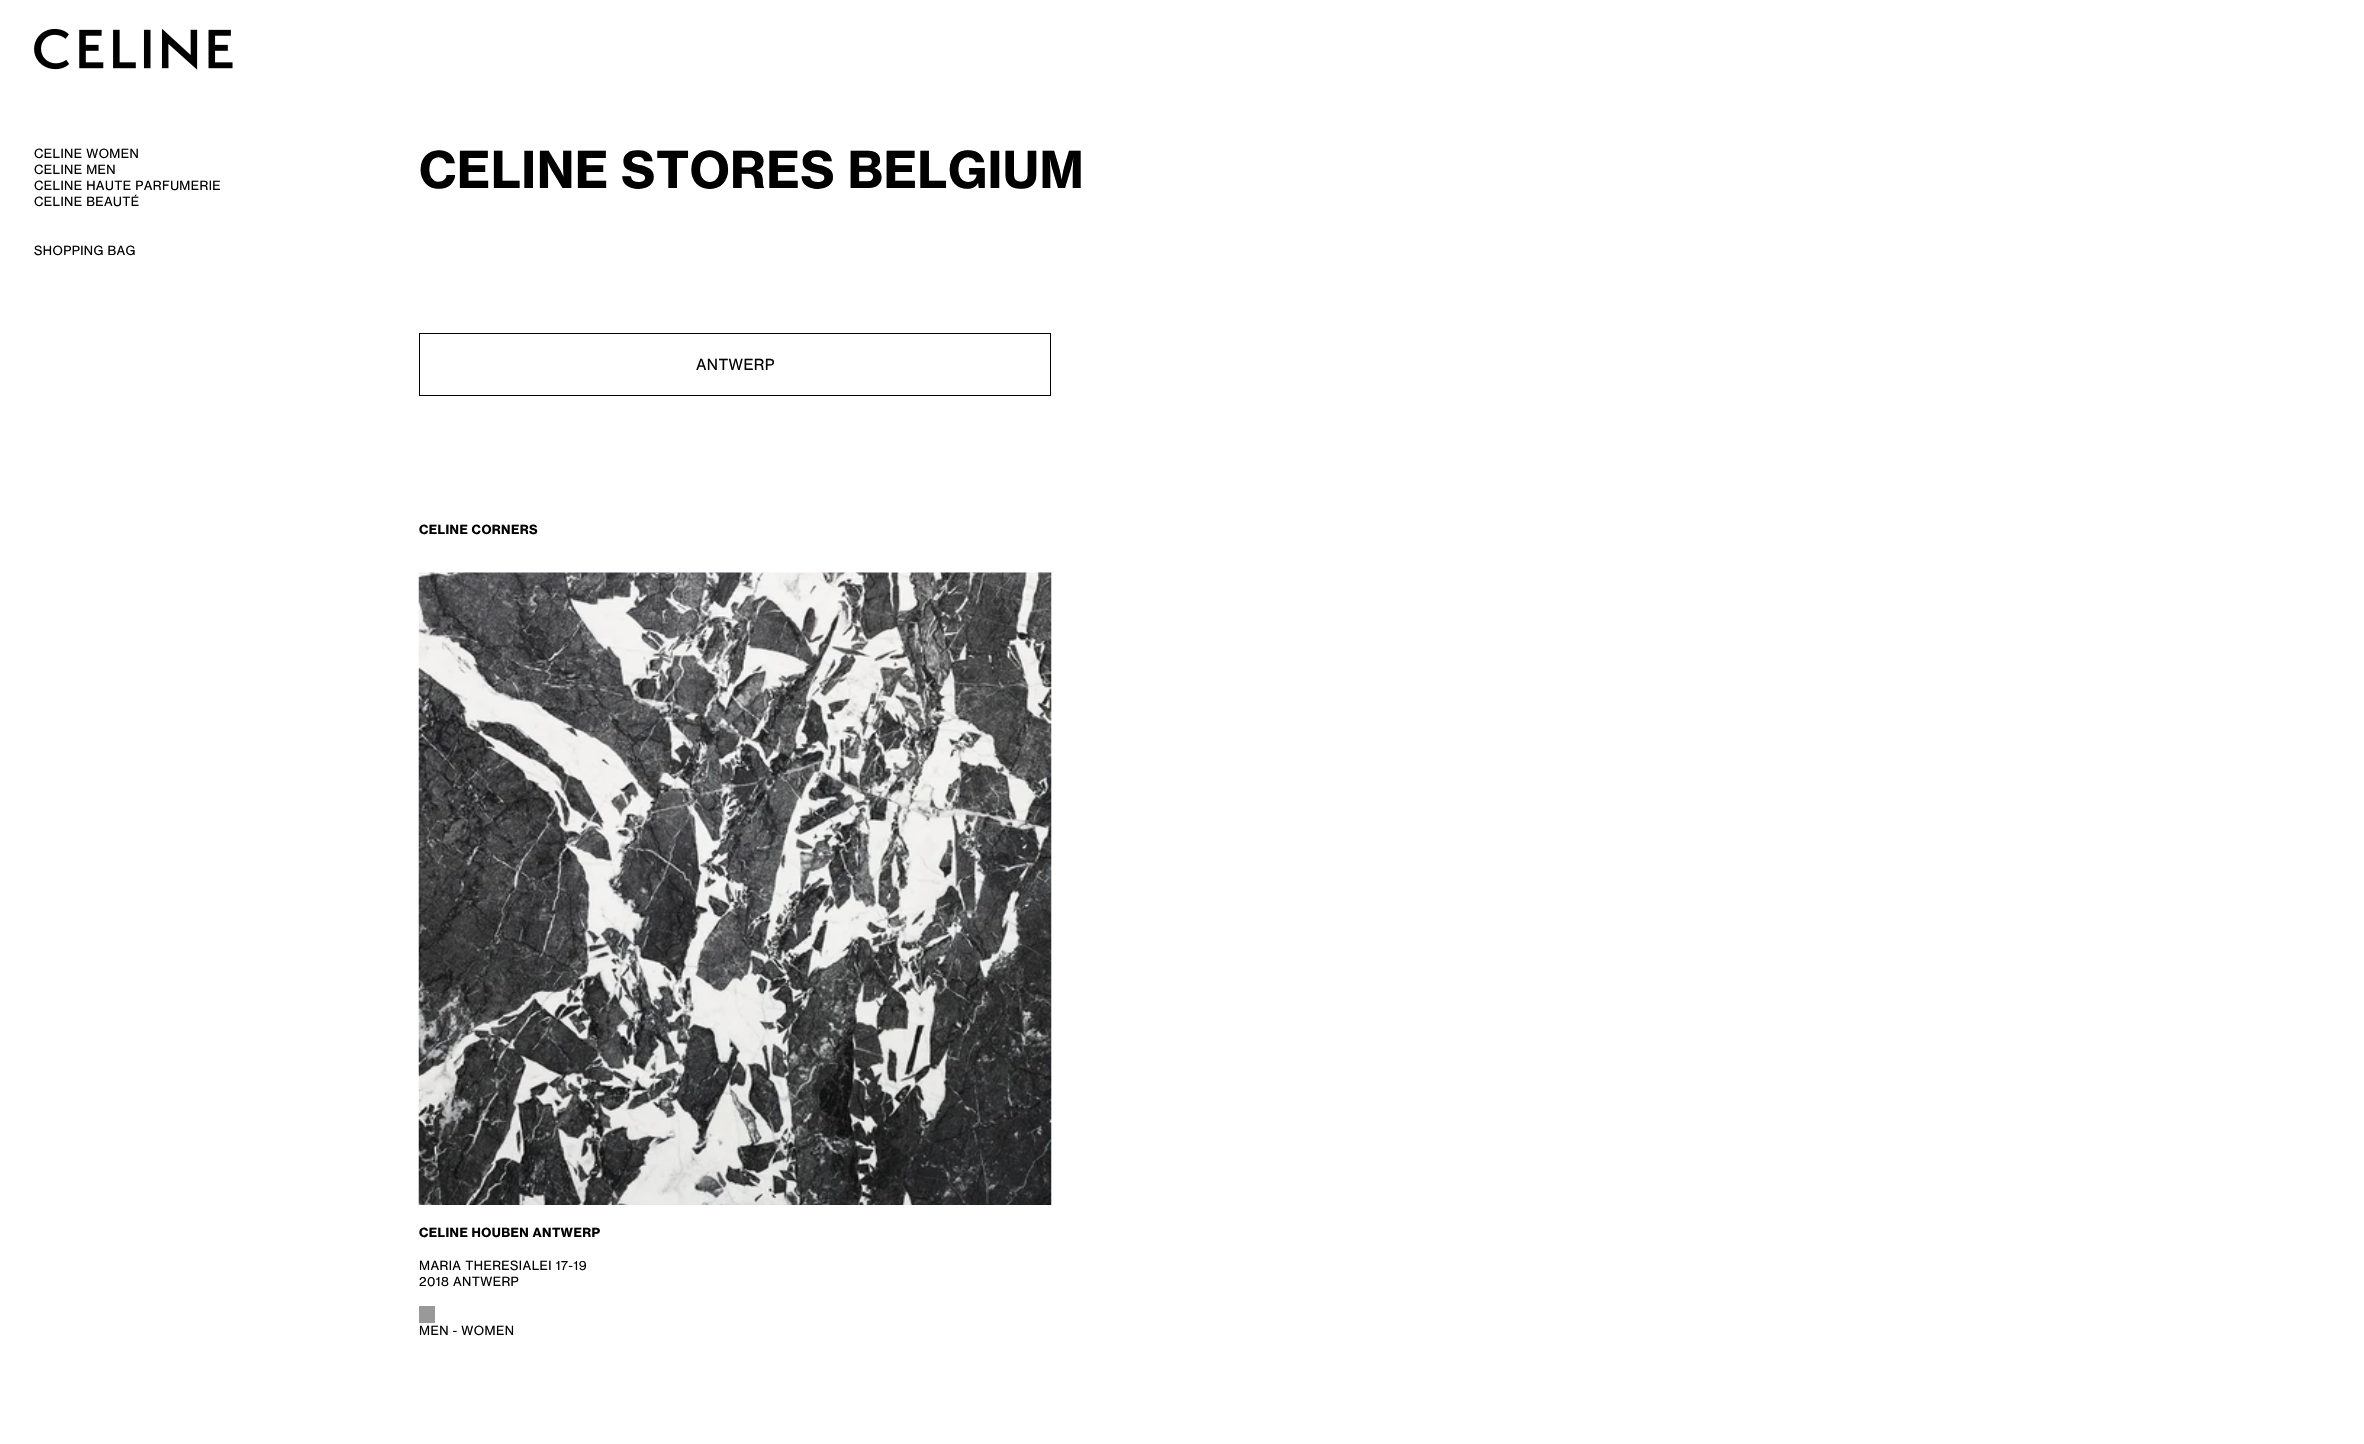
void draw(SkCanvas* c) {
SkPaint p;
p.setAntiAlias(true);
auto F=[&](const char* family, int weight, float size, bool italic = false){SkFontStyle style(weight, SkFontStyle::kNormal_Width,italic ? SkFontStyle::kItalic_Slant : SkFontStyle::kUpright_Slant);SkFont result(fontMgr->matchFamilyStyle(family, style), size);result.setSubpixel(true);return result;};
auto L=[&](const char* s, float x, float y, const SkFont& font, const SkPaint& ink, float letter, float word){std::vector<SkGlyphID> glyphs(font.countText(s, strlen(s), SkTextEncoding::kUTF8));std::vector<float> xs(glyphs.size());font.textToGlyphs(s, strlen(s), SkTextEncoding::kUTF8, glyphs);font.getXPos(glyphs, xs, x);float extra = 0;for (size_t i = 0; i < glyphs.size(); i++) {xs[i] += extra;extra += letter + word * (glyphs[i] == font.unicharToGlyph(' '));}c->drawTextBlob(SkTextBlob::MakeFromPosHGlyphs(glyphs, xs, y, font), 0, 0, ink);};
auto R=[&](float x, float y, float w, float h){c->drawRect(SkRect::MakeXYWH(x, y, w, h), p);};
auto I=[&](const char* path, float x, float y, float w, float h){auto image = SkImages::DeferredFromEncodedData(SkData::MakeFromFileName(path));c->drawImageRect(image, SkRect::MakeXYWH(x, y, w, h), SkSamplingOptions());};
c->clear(0xffffffff);
I("1.png",34,28,199,42);
auto f1 = F("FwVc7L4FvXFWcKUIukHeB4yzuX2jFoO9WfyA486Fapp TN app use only",400,12.5);
p.setColor(0xff000000);
L("CELINE WOMEN",34,158,f1,p,.4,0);
L("CELINE MEN",34,174,f1,p,.4,0);
L("CELINE HAUTE PARFUMERIE",34,190,f1,p,.4,0);
L("CELINE BEAUTÉ",34,206,f1,p,.4,0);
L("SHOPPING BAG",34,255,f1,p,.4,0);
auto f2 = F("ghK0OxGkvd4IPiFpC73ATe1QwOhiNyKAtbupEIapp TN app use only",700,50);
L("CELINE STORES BELGIUM",419,188,f2,p,.4,0);
p.setStroke(true);
p.setStrokeWidth(1);
c->drawRect(SkRect::MakeXYWH(419.5,333.5,631,62),p);
auto f3 = F("FwVc7L4FvXFWcKUIukHeB4yzuX2jFoO9WfyA486Fapp TN app use only",400,15);
p.setStroke(false);
L("ANTWERP",696,370,f3,p,.4,0);
auto f4 = F("ghK0OxGkvd4IPiFpC73ATe1QwOhiNyKAtbupEIapp TN app use only",700,12.5);
L("CELINE CORNERS",419,534,f4,p,.4,0);
I("2.png",418,572,634,633);
L("CELINE HOUBEN ANTWERP",419,1237,f4,p,.4,0);
L("MARIA THERESIALEI 17-19",419,1270,f1,p,.4,0);
L("2018 ANTWERP",419,1286,f1,p,.4,0);
p.setColor(0xff999999);
R(419,1306,16,17);
p.setColor(0xff000000);
L("MEN - WOMEN",419,1335,f1,p,.4,0);
}
